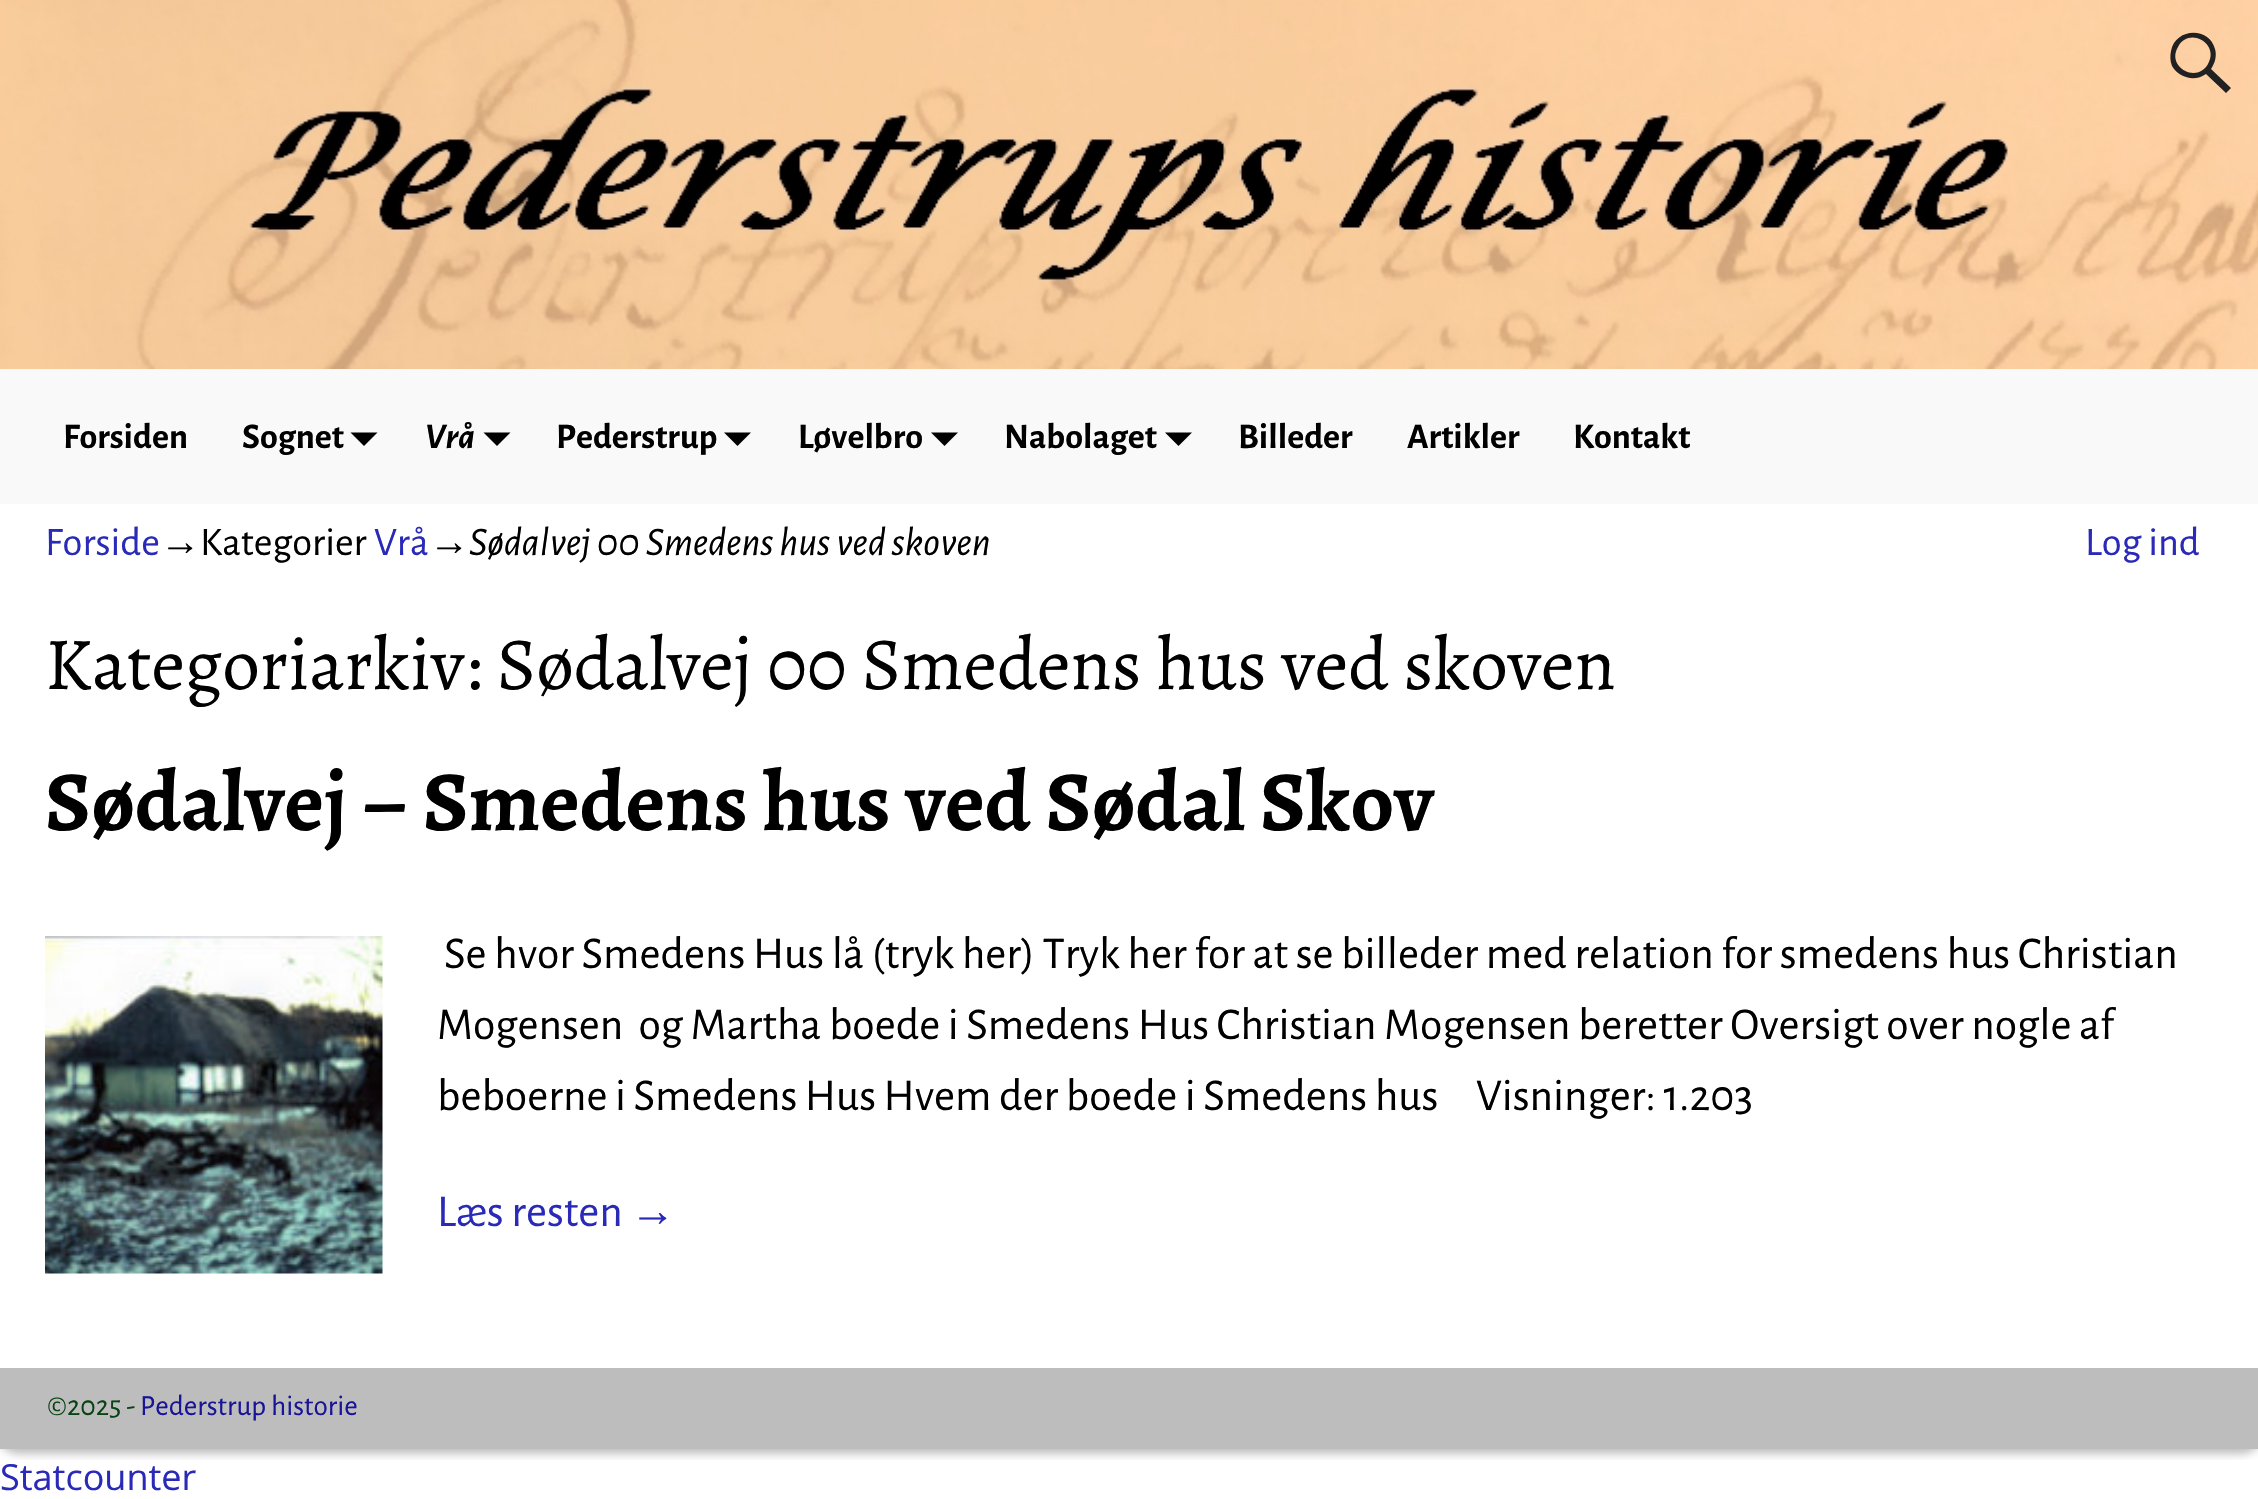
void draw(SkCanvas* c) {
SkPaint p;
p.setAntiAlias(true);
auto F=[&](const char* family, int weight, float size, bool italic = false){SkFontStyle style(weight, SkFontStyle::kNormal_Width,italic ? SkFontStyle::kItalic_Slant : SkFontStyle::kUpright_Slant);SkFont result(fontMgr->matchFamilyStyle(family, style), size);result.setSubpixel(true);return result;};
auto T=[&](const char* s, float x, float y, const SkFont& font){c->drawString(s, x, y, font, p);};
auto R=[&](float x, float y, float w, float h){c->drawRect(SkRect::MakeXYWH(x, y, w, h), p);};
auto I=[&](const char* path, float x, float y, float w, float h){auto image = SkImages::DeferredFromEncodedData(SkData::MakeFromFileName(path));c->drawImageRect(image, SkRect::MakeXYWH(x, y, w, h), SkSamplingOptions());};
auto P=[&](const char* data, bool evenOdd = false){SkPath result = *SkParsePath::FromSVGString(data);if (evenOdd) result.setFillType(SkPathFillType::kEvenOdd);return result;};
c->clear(0xffffffff);
c->save();
c->clipRect(SkRect::MakeXYWH(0,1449,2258,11));
p.setColor(0x40000000);
p.setMaskFilter(SkMaskFilter::MakeBlur(kNormal_SkBlurStyle, 4.5));
c->drawRoundRect(SkRect::MakeXYWH(-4,-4,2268,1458),23,23,p);
p.setMaskFilter(nullptr);
c->restore();
I("1.png",0,0,2258,369);
p.setColor(0xff212121);
c->drawPath(P("M2231 88l-5 5l-20-19c-11 8-27 4-34-8c-2-5-2-10-1-15c4-23 38-25 44-2c2 7 0 14-4 20zm-53-41c-12 20 19 37 30 17c12-20-19-38-30-17z"),p);
p.setColor(0xfff9f9f9);
R(0,369,2258,135);
auto f1 = F("Alegreya Sans",700,36);
p.setColor(0xff000000);
T("Forsiden",63,448,f1);
T("Sognet",242,448,f1);
c->drawPath(P("M350.5 432.5h27l-13.5 13.5z"),p);
auto f2 = F("Alegreya Sans",700,36,true);
T("Vrå",425,448,f2);
c->drawPath(P("M483.5 432.5h27l-13.5 13.5z"),p);
T("Pederstrup",556,448,f1);
c->drawPath(P("M724 432.5h27l-13.5 13.5z"),p);
T("Løvelbro",798,448,f1);
c->drawPath(P("M931 432.5h27l-13.5 13.5z"),p);
T("Nabolaget",1004,448,f1);
c->drawPath(P("M1165 432.5h27l-13.5 13.5z"),p);
T("Billeder",1238,448,f1);
T("Artikler",1407,448,f1);
T("Kontakt",1573,448,f1);
auto f3 = F("Alegreya Sans",400,40.5);
p.setColor(0xff2a2ab8);
T("Forside",45,555,f3);
auto f4 = F("Liberation Sans",400,40.5);
p.setColor(0xff000000);
T("→",160,555,f4);
T("Kategorier",200,555,f3);
p.setColor(0xff2a2ab8);
T("Vrå",374,555,f3);
p.setColor(0xff000000);
T("→",429,555,f4);
auto f5 = F("Alegreya Sans",400,40.5,true);
T("Sødalvej 00 Smedens hus ved skoven",469,555,f5);
p.setColor(0xff2a2ab8);
T("Log ind",2085,555,f3);
auto f6 = F("Alegreya",400,74.75);
p.setColor(0xff000000);
T("Kategoriarkiv: Sødalvej 00 Smedens hus ved skoven",45,689,f6);
auto f7 = F("Alegreya",700,85.4);
T("Sødalvej – Smedens hus ved Sødal Skov",45,830,f7);
I("2.png",45,936,338,338);
auto f8 = F("Alegreya Sans",400,45.55);
T("Se hvor Smedens Hus lå (tryk her) Tryk her for at se billeder med relation for smedens hus Christian",444,968,f8);
T("Mogensen  og Martha boede i Smedens Hus Christian Mogensen beretter Oversigt over nogle af",437,1039,f8);
T("beboerne i Smedens Hus Hvem der boede i Smedens hus     Visninger: 1.203",437,1110,f8);
p.setColor(0xff2a2ab8);
T("Læs resten",437,1226,f8);
auto f9 = F("Liberation Sans",400,45.55);
T("→",630,1226,f9);
p.setColor(0xffbdbdbd);
R(0,1368,2258,81);
auto f10 = F("Alegreya Sans",400,29.25);
p.setColor(0xff094213);
T("©2025 -",47,1415,f10);
p.setColor(0xff181496);
T("Pederstrup historie",140,1415,f10);
auto f11 = F("Open Sans",400,36);
p.setColor(0xff2a2ab8);
T("Statcounter",0,1490,f11);
}
